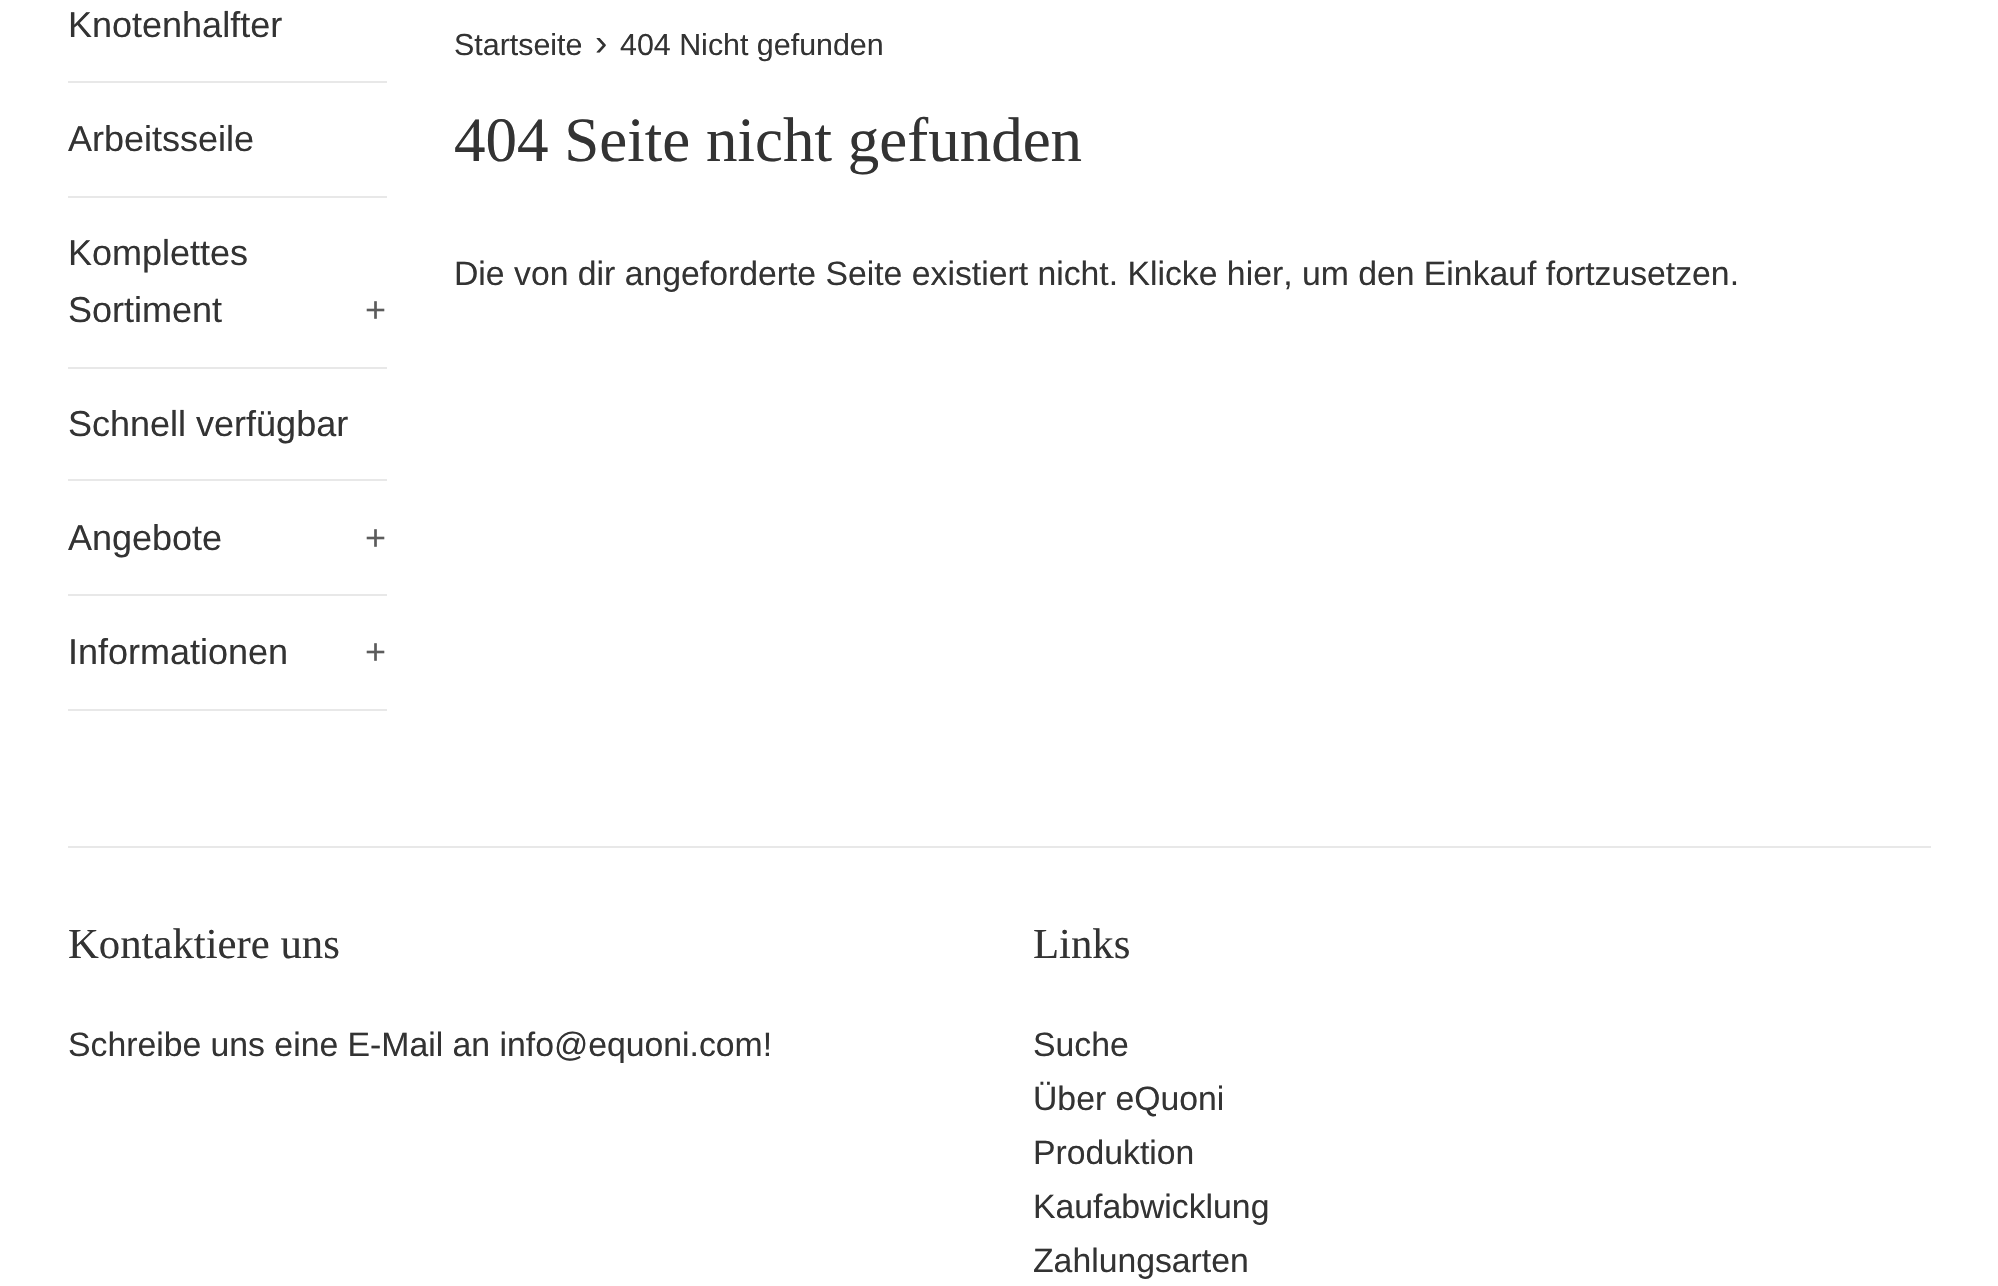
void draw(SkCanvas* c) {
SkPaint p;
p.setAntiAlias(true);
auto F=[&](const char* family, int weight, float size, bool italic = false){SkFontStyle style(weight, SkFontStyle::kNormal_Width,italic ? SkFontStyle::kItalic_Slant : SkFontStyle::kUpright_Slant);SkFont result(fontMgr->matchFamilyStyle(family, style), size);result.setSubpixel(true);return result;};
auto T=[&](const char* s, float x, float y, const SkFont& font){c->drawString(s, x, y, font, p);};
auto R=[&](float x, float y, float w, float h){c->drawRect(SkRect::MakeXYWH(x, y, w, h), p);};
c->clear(0xffffffff);
p.setColor(0xffe8e8e8);
R(68,81,319,2);
auto f1 = F("Liberation Sans",400,36);
p.setColor(0xff333333);
T("Knotenhalfter",68,37,f1);
p.setColor(0xffe8e8e8);
R(68,196,319,2);
p.setColor(0xff333333);
T("Arbeitsseile",68,151,f1);
p.setColor(0xffe8e8e8);
R(68,367,319,2);
p.setColor(0xff333333);
T("Komplettes",68,265,f1);
T("Sortiment",68,322,f1);
p.setColor(0xff5c5c5c);
T("+",365,322,f1);
p.setColor(0xffe8e8e8);
R(68,479,319,2);
p.setColor(0xff333333);
T("Schnell verfügbar",68,436,f1);
p.setColor(0xffe8e8e8);
R(68,594,319,2);
p.setColor(0xff333333);
T("Angebote",68,550,f1);
p.setColor(0xff5c5c5c);
T("+",365,550,f1);
p.setColor(0xffe8e8e8);
R(68,709,319,2);
p.setColor(0xff333333);
T("Informationen",68,664,f1);
p.setColor(0xff5c5c5c);
T("+",365,664,f1);
auto f2 = F("Liberation Sans",400,30.4);
p.setColor(0xff333333);
T("Startseite",454,55,f2);
auto f3 = F("Liberation Sans",400,37);
T("›",595,55,f3);
T("404 Nicht gefunden",620,55,f2);
auto f4 = F("Liberation Serif",400,63);
T("404 Seite nicht gefunden",454,161,f4);
auto f5 = F("Liberation Sans",400,33.75);
T("Die von dir angeforderte Seite existiert nicht. Klicke hier, um den Einkauf fortzusetzen.",454,285,f5);
p.setColor(0xffe8e8e8);
R(68,846,1863,2);
auto f6 = F("Liberation Serif",400,42.75);
p.setColor(0xff333333);
T("Kontaktiere uns",68,958,f6);
T("Schreibe uns eine E-Mail an info@equoni.com!",68,1056,f5);
T("Links",1033,958,f6);
T("Suche",1033,1056,f5);
T("Über eQuoni",1033,1110,f5);
T("Produktion",1033,1164,f5);
T("Kaufabwicklung",1033,1218,f5);
T("Zahlungsarten",1033,1272,f5);
}
